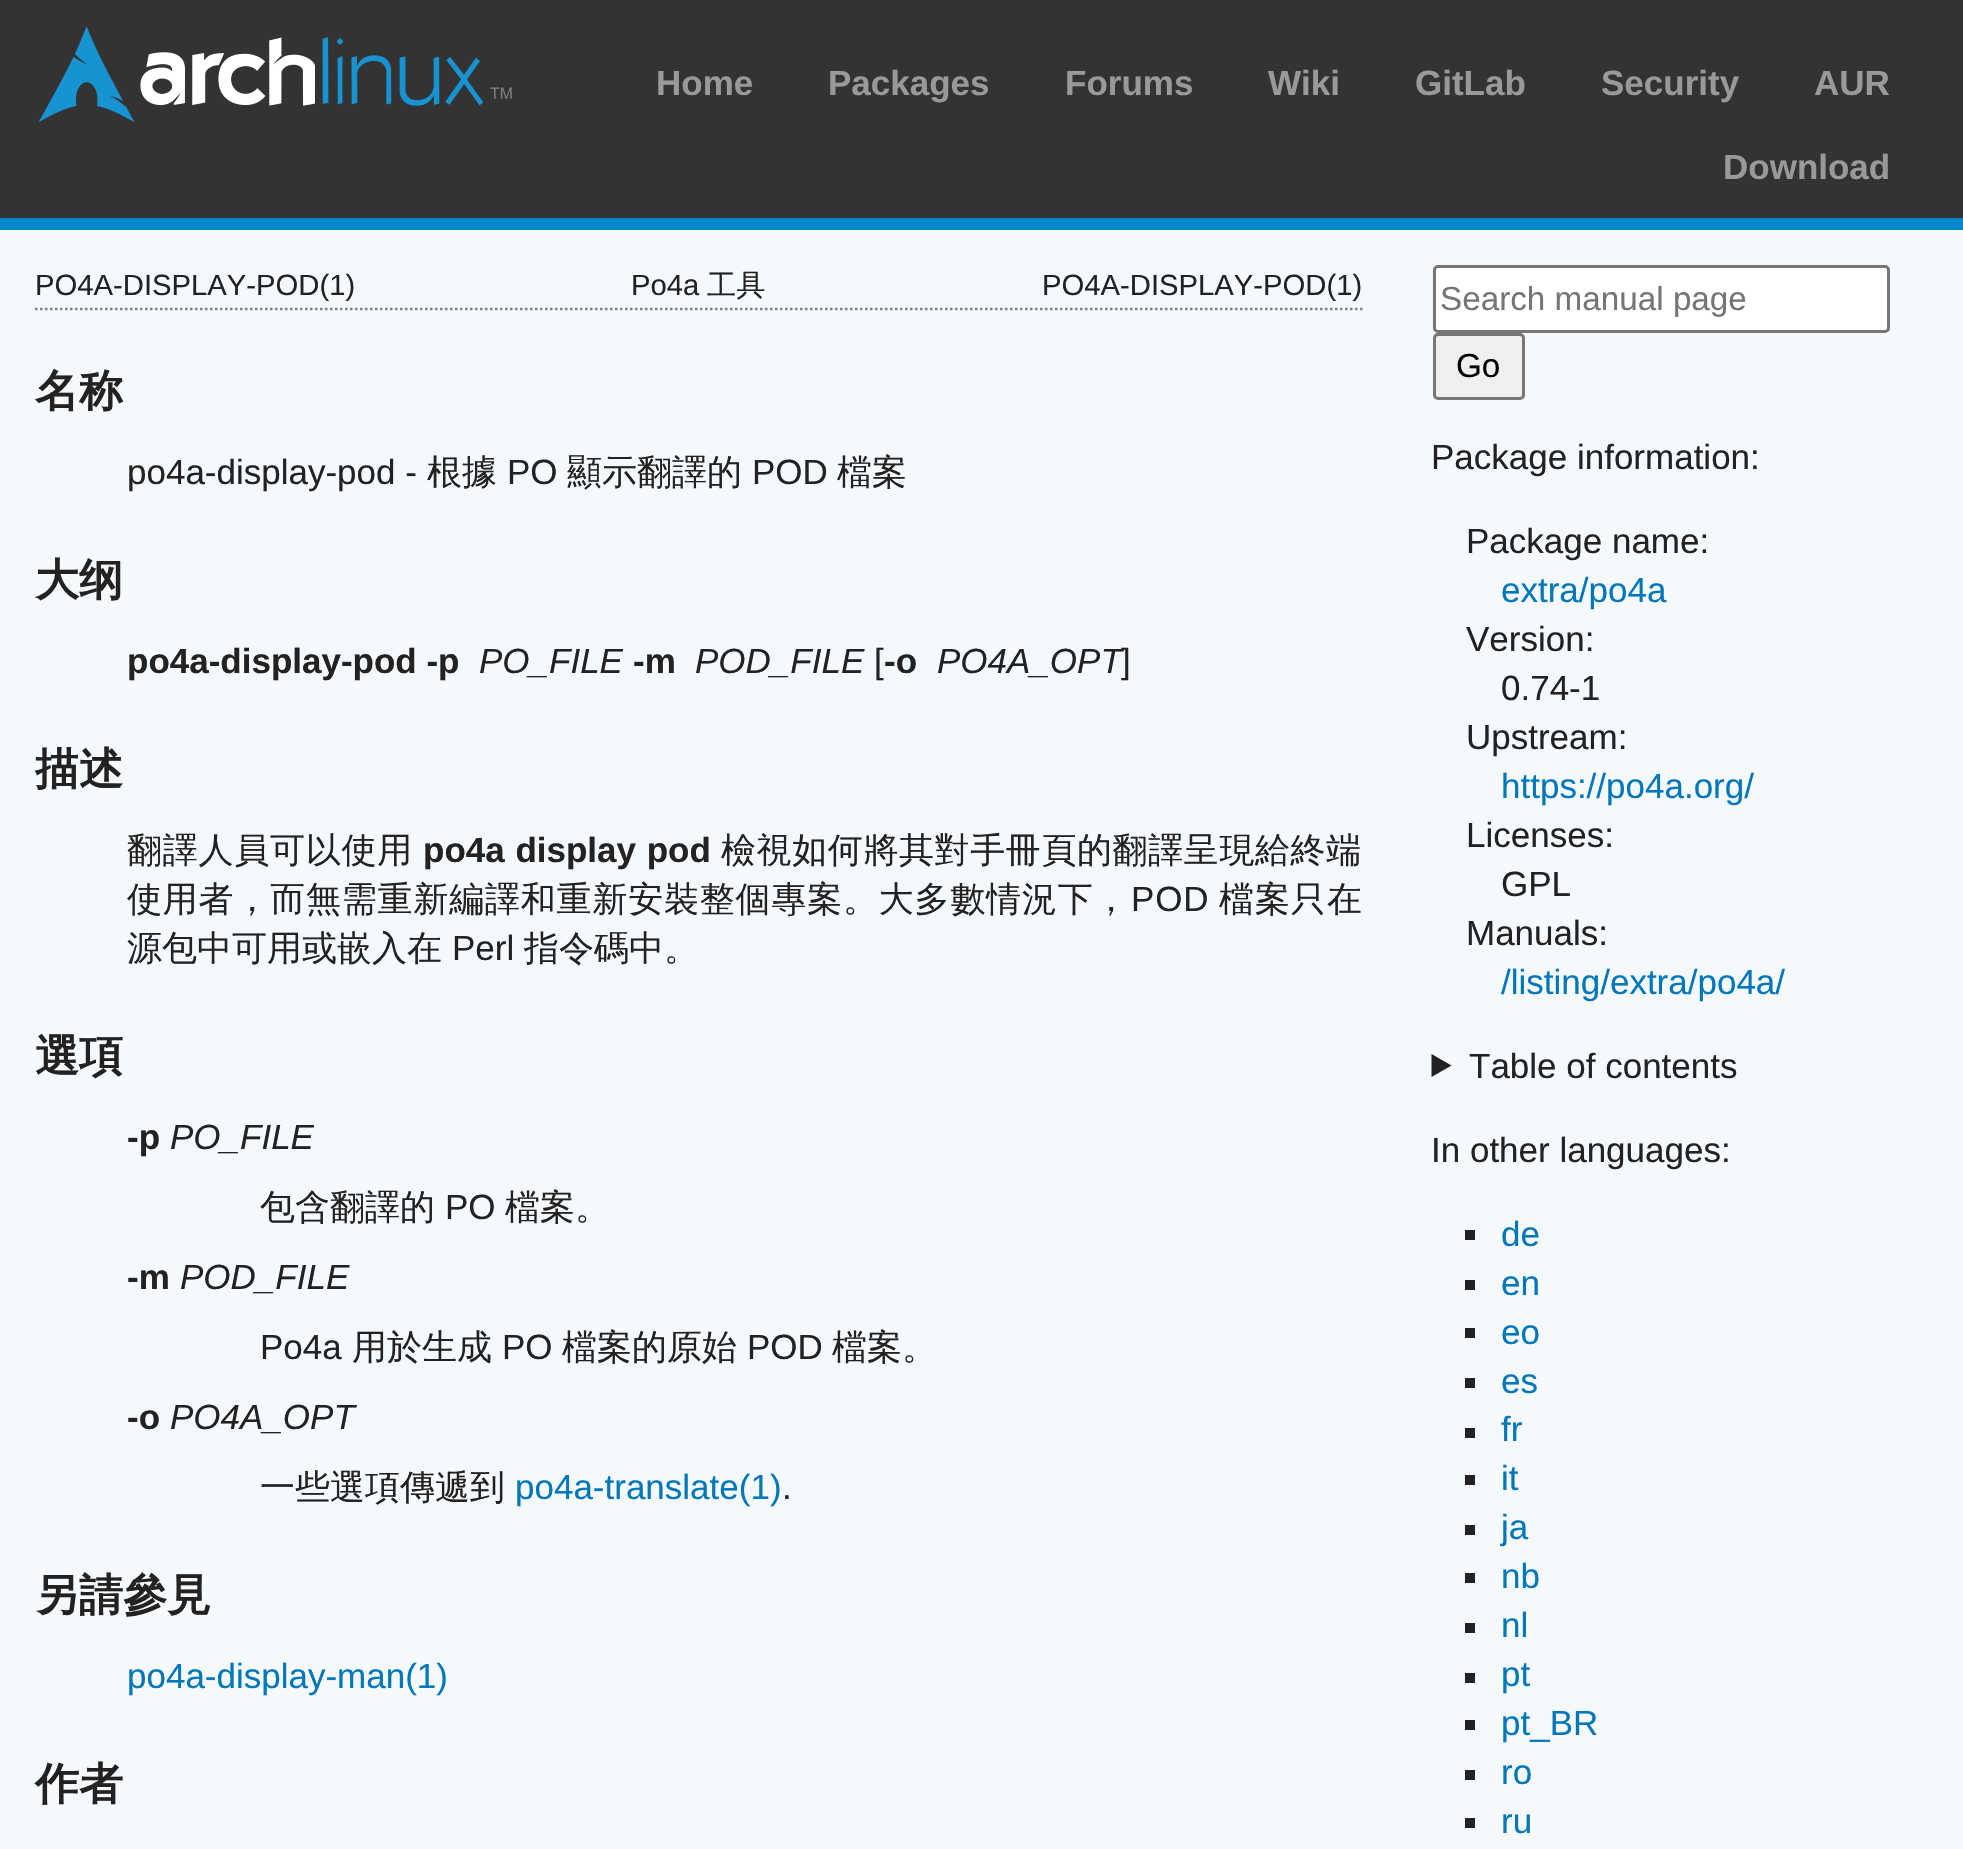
void draw(SkCanvas* c) {
SkPaint p;
p.setAntiAlias(true);
auto F=[&](const char* family, int weight, float size, bool italic = false){SkFontStyle style(weight, SkFontStyle::kNormal_Width,italic ? SkFontStyle::kItalic_Slant : SkFontStyle::kUpright_Slant);SkFont result(fontMgr->matchFamilyStyle(family, style), size);result.setSubpixel(true);return result;};
auto T=[&](const char* s, float x, float y, const SkFont& font){c->drawString(s, x, y, font, p);};
auto L=[&](const char* s, float x, float y, const SkFont& font, const SkPaint& ink, float letter, float word){std::vector<SkGlyphID> glyphs(font.countText(s, strlen(s), SkTextEncoding::kUTF8));std::vector<float> xs(glyphs.size());font.textToGlyphs(s, strlen(s), SkTextEncoding::kUTF8, glyphs);font.getXPos(glyphs, xs, x);float extra = 0;for (size_t i = 0; i < glyphs.size(); i++) {xs[i] += extra;extra += letter + word * (glyphs[i] == font.unicharToGlyph(' '));}c->drawTextBlob(SkTextBlob::MakeFromPosHGlyphs(glyphs, xs, y, font), 0, 0, ink);};
auto R=[&](float x, float y, float w, float h){c->drawRect(SkRect::MakeXYWH(x, y, w, h), p);};
auto I=[&](const char* path, float x, float y, float w, float h){auto image = SkImages::DeferredFromEncodedData(SkData::MakeFromFileName(path));c->drawImageRect(image, SkRect::MakeXYWH(x, y, w, h), SkSamplingOptions());};
auto P=[&](const char* data, bool evenOdd = false){SkPath result = *SkParsePath::FromSVGString(data);if (evenOdd) result.setFillType(SkPathFillType::kEvenOdd);return result;};
c->clear(0xfff6f9fc);
p.setColor(0xff333333);
R(0,0,1963,218);
p.setColor(0xff0088cc);
R(0,218,1963,12);
I("1.png",38,26,474,96);
auto f1 = F("Liberation Sans",700,35);
p.setColor(0xff999999);
T("Home",656,95,f1);
T("Packages",828,95,f1);
T("Forums",1065,95,f1);
T("Wiki",1268,95,f1);
T("GitLab",1415,95,f1);
T("Security",1601,95,f1);
T("AUR",1814,95,f1);
T("Download",1723,179,f1);
p.setStroke(true);
p.setStrokeWidth(2.5);
p.setColor(0xff808080);
p.setPathEffect(SkDashPathEffect::Make({{2.5f,2.5f}}, 0));
c->drawPath(P("M35 309h1327.5"),p);
p.setPathEffect(nullptr);
auto f2 = F("Liberation Sans",400,29.25);
p.setStroke(false);
p.setColor(0xff222222);
T("PO4A-DISPLAY-POD(1)",35,295,f2);
T("Po4a",631,295,f2);
auto f3 = F("WenQuanYi Zen Hei",500,29.25);
T("工具",707,295,f3);
T("PO4A-DISPLAY-POD(1)",1042,295,f2);
auto f4 = F("WenQuanYi Zen Hei",700,44);
T("名称",35,406,f4);
auto f5 = F("Liberation Sans",400,35);
T("po4a-display-pod -",127,484,f5);
auto f6 = F("WenQuanYi Zen Hei",500,35);
T("根據",427,484,f6);
T("PO",507,484,f5);
T("顯示翻譯的",567,484,f6);
T("POD",752,484,f5);
T("檔案",837,484,f6);
T("大纲",35,595,f4);
T("po4a-display-pod -p",127,673,f1);
auto f7 = F("Liberation Sans",400,35,true);
T("PO_FILE",479,673,f7);
T("-m",633,673,f1);
T("POD_FILE",695,673,f7);
T("[",874,673,f5);
T("-o",884,673,f1);
T("PO4A_OPT",937,673,f7);
T("]",1121,673,f5);
T("描述",35,784,f4);
L("翻譯人員可以使用",127,862,f6,p,.75,0);
L("po4a display pod",423,862,f1,p,0,1);
L("檢視如何將其對手冊頁的翻譯呈現給終端",721,862,f6,p,.6,0);
L("使用者，而無需重新編譯和重新安裝整個專案。大多數情況下，",127,911,f6,p,.8,0);
L("POD",1131,911,f5,p,.8,0);
L("檔案只在",1219,911,f6,p,1,0);
T("源包中可用或嵌入在",127,960,f6);
T("Perl",452,960,f5);
T("指令碼中。",524,960,f6);
T("選項",35,1071,f4);
T("-p",127,1149,f1);
T("PO_FILE",170,1149,f7);
T("包含翻譯的",260,1219,f6);
T("PO",445,1219,f5);
T("檔案。",505,1219,f6);
T("-m",127,1289,f1);
T("POD_FILE",180,1289,f7);
T("Po4a",260,1359,f5);
T("用於生成",352,1359,f6);
T("PO",502,1359,f5);
T("檔案的原始",562,1359,f6);
T("POD",747,1359,f5);
T("檔案。",832,1359,f6);
T("-o",127,1429,f1);
T("PO4A_OPT",170,1429,f7);
T("一些選項傳遞到",260,1499,f6);
p.setColor(0xff0077bb);
T("po4a-translate(1)",515,1499,f5);
p.setColor(0xff222222);
T(".",782,1499,f5);
T("另請參見",35,1610,f4);
p.setColor(0xff0077bb);
T("po4a-display-man(1)",127,1688,f5);
p.setColor(0xff222222);
T("作者",35,1799,f4);
p.setColor(0xffffffff);
c->drawRoundRect(SkRect::MakeXYWH(1434.5,266.5,454,65),3.5,3.5,p);
p.setStroke(true);
p.setStrokeWidth(3);
p.setColor(0xff767676);
c->drawRoundRect(SkRect::MakeXYWH(1434.5,266.5,454,65),3.5,3.5,p);
auto f8 = F("Liberation Sans",400,33.25);
p.setStroke(false);
p.setColor(0xff757575);
T("Search manual page",1440,310,f8);
p.setColor(0xffefefef);
c->drawRoundRect(SkRect::MakeXYWH(1434.5,334.5,89,64),3.5,3.5,p);
p.setStroke(true);
p.setColor(0xff767676);
c->drawRoundRect(SkRect::MakeXYWH(1434.5,334.5,89,64),3.5,3.5,p);
p.setStroke(false);
p.setColor(0xff000000);
T("Go",1456,377,f8);
p.setColor(0xff222222);
T("Package information:",1431,469,f5);
T("Package name:",1466,553,f5);
p.setColor(0xff0077bb);
T("extra/po4a",1501,602,f5);
p.setColor(0xff222222);
T("Version:",1466,651,f5);
T("0.74-1",1501,700,f5);
T("Upstream:",1466,749,f5);
p.setColor(0xff0077bb);
T("https://po4a.org/",1501,798,f5);
p.setColor(0xff222222);
T("Licenses:",1466,847,f5);
T("GPL",1501,896,f5);
T("Manuals:",1466,945,f5);
p.setColor(0xff0077bb);
T("/listing/extra/po4a/",1501,994,f5);
p.setColor(0xff222222);
c->drawPath(P("M1431.5 1054l20 11.5l-20 11.5z"),p);
T("Table of contents",1469,1078,f5);
T("In other languages:",1431,1162,f5);
R(1465,1230,10,10);
p.setColor(0xff0077bb);
T("de",1501,1246,f5);
p.setColor(0xff222222);
R(1465,1280,10,10);
p.setColor(0xff0077bb);
T("en",1501,1295,f5);
p.setColor(0xff222222);
R(1465,1328,10,10);
p.setColor(0xff0077bb);
T("eo",1501,1344,f5);
p.setColor(0xff222222);
R(1465,1378,10,10);
p.setColor(0xff0077bb);
T("es",1501,1393,f5);
p.setColor(0xff222222);
R(1465,1428,10,10);
p.setColor(0xff0077bb);
T("fr",1501,1441,f5);
p.setColor(0xff222222);
R(1465,1475,10,10);
p.setColor(0xff0077bb);
T("it",1501,1490,f5);
p.setColor(0xff222222);
R(1465,1525,10,10);
p.setColor(0xff0077bb);
T("ja",1501,1539,f5);
p.setColor(0xff222222);
R(1465,1573,10,10);
p.setColor(0xff0077bb);
T("nb",1501,1588,f5);
p.setColor(0xff222222);
R(1465,1623,10,10);
p.setColor(0xff0077bb);
T("nl",1501,1637,f5);
p.setColor(0xff222222);
R(1465,1673,10,10);
p.setColor(0xff0077bb);
T("pt",1501,1686,f5);
p.setColor(0xff222222);
R(1465,1720,10,10);
p.setColor(0xff0077bb);
T("pt_BR",1501,1735,f5);
p.setColor(0xff222222);
R(1465,1770,10,10);
p.setColor(0xff0077bb);
T("ro",1501,1784,f5);
p.setColor(0xff222222);
R(1465,1818,10,10);
p.setColor(0xff0077bb);
T("ru",1501,1833,f5);
}
